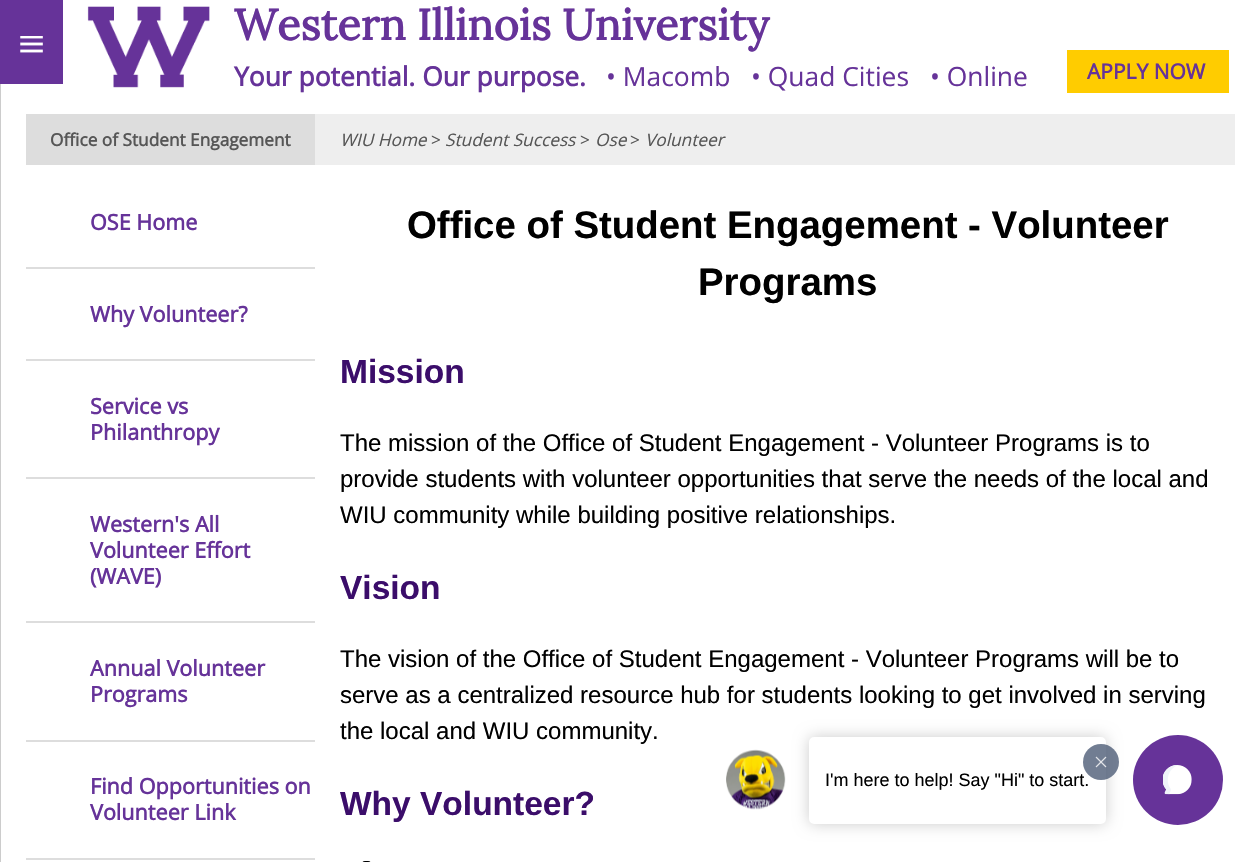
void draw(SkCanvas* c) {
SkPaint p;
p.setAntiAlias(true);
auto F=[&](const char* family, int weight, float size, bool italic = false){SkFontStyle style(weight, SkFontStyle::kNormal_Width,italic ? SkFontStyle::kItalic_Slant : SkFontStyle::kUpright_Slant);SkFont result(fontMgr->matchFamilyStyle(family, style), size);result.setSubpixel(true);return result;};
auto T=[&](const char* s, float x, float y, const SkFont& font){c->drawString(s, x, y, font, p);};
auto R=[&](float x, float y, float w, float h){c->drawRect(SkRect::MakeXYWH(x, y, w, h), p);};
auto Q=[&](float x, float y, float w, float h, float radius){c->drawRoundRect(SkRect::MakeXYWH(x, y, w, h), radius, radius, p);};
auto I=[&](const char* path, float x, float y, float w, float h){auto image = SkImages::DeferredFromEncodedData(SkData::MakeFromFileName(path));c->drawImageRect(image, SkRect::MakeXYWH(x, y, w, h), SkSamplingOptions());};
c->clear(0xffffffff);
p.setColor(0xff663399);
R(0,0,63,84);
auto f1 = F("Liberation Serif",400,48);
p.setColor(0xffffffff);
T("≡",18,60,f1);
I("1.png",87,6,123,82);
auto f2 = F("Lora",700,43.25);
p.setColor(0xff663399);
T("Western Illinois University",234,40,f2);
auto f3 = F("Open Sans",700,26.4);
T("Your potential. Our purpose.",234,86,f3);
auto f4 = F("Open Sans",400,26.4);
T("• Macomb",606,86,f4);
T("• Quad Cities",751,86,f4);
T("• Online",930,86,f4);
p.setColor(0xffffcc00);
R(1067,50,162,43);
auto f5 = F("Open Sans",700,21);
p.setColor(0xff663399);
T("APPLY NOW",1087,79,f5);
p.setColor(0xffcccccc);
R(0,84,1,778);
p.setColor(0xffeeeeee);
R(315,114,920,51);
p.setColor(0xffdddddd);
R(26,114,289,51);
auto f6 = F("Open Sans",700,17.25);
p.setColor(0xff565656);
T("Office of Student Engagement",50,146,f6);
auto f7 = F("Open Sans",400,17.25,true);
T("WIU Home",340,146,f7);
auto f8 = F("Open Sans",400,17.25);
T(">",431,146,f8);
T("Student Success",445,146,f7);
T(">",580,146,f8);
T("Ose",595,146,f7);
T(">",630,146,f8);
T("Volunteer",645,146,f7);
p.setColor(0xffdddddd);
R(26,267,289,2);
auto f9 = F("Open Sans",700,21.6);
p.setColor(0xff663399);
T("OSE Home",90,230,f9);
p.setColor(0xffdddddd);
R(26,359,289,2);
p.setColor(0xff663399);
T("Why Volunteer?",90,322,f9);
p.setColor(0xffdddddd);
R(26,477,289,2);
p.setColor(0xff663399);
T("Service vs",90,414,f9);
T("Philanthropy",90,440,f9);
p.setColor(0xffdddddd);
R(26,621,289,2);
p.setColor(0xff663399);
T("Western's All",90,532,f9);
T("Volunteer Effort",90,558,f9);
T("(WAVE)",90,584,f9);
p.setColor(0xffdddddd);
R(26,740,289,2);
p.setColor(0xff663399);
T("Annual Volunteer",90,676,f9);
T("Programs",90,702,f9);
p.setColor(0xffdddddd);
R(26,858,289,2);
p.setColor(0xff663399);
T("Find Opportunities on",90,794,f9);
T("Volunteer Link",90,820,f9);
auto f10 = F("Liberation Sans",700,38.4);
p.setColor(0xff000000);
T("Office of Student Engagement - Volunteer",407,238,f10);
T("Programs",698,295,f10);
auto f11 = F("Liberation Sans",700,33.5);
p.setColor(0xff3b0d6a);
T("Mission",340,383,f11);
auto f12 = F("Liberation Sans",400,24);
p.setColor(0xff000000);
T("The mission of the Office of Student Engagement - Volunteer Programs is to",340,451,f12);
T("provide students with volunteer opportunities that serve the needs of the local and",340,487,f12);
T("WIU community while building positive relationships.",340,523,f12);
p.setColor(0xff3b0d6a);
T("Vision",340,599,f11);
p.setColor(0xff000000);
T("The vision of the Office of Student Engagement - Volunteer Programs will be to",340,667,f12);
T("serve as a centralized resource hub for students looking to get involved in serving",340,703,f12);
T("the local and WIU community.",340,739,f12);
p.setColor(0xff3b0d6a);
T("Why Volunteer?",340,815,f11);
p.setColor(0xff000000);
Q(362,861,9,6,4.5);
I("2.png",726,749,60,61);
p.setColor(0x33000000);
p.setMaskFilter(SkMaskFilter::MakeBlur(kNormal_SkBlurStyle, 7.5));
c->drawRoundRect(SkRect::MakeXYWH(809,737,297,87),5,5,p);
p.setMaskFilter(nullptr);
p.setColor(0xffffffff);
c->drawRoundRect(SkRect::MakeXYWH(810,738,295,85),4,4,p);
p.setStroke(true);
p.setStrokeWidth(2);
c->drawRoundRect(SkRect::MakeXYWH(810,738,295,85),4,4,p);
auto f13 = F("Liberation Sans",400,18);
p.setStroke(false);
p.setColor(0xff000000);
T("I'm here to help! Say \"Hi\" to start.",825,786,f13);
p.setColor(0xcc4e5d77);
c->drawCircle(1101,762,18,p);
I("3.png",1095,756,12,12);
p.setColor(0xff663399);
c->drawCircle(1178,780,45,p);
I("4.png",1163,765,29,30);
}
